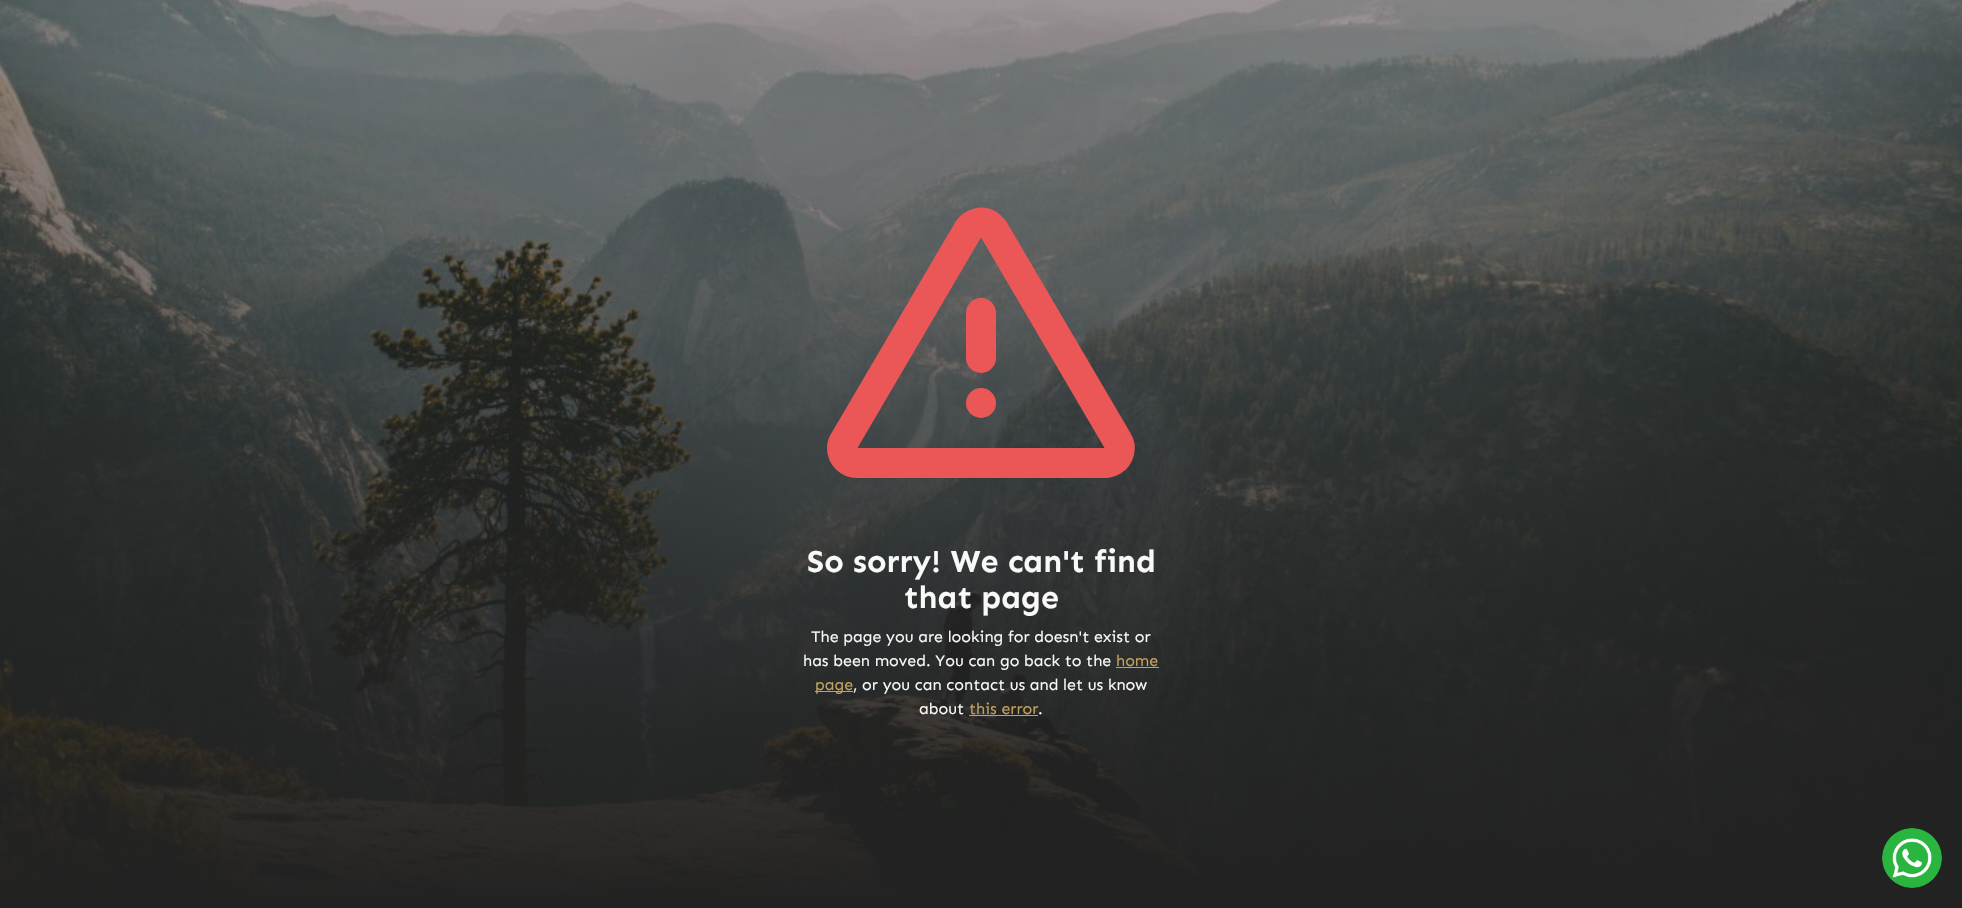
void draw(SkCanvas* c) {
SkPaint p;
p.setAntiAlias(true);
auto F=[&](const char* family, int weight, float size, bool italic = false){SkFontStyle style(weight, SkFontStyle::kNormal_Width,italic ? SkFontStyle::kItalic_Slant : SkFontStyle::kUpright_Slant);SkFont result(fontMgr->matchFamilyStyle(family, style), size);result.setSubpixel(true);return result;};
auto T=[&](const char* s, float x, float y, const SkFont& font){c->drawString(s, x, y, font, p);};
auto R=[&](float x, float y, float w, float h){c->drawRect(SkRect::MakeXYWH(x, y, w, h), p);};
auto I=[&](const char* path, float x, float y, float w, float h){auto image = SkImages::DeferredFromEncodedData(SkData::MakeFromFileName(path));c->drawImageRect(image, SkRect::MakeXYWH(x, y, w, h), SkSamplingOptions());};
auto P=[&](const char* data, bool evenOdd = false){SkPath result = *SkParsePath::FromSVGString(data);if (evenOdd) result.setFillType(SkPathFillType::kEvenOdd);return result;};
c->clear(0xffffffff);
I("1.png",0,0,1962,908);
p.setStroke(true);
p.setStrokeWidth(30);
p.setStrokeCap(SkPaint::kRound_Cap);
p.setStrokeJoin(SkPaint::kRound_Join);
p.setColor(0xffeb5757);
c->drawPath(P("M981 313v45"),p);
c->drawPath(P("M981 403h0"),p);
c->drawPath(P("M994 230l123.5 210.5c4.5 7 2 16-5 20.5c-2.5 1.5-5 2-7.5 2h-248c-8 0-15-6.5-15-15c0-2.5 1-5.5 2.5-7.5l123.5-210.5c4.5-7 13.5-9.5 20.5-5.5c2.5 1.5 4 3.5 5.5 5.5z"),p);
auto f1 = F("Sen",700,32);
p.setStroke(false);
p.setColor(0xfff9f9f9);
T("So sorry! We can't find",807,572,f1);
T("that page",904,608,f1);
auto f2 = F("Sen",400,16);
T("The page you are looking for doesn't exist or",811,642,f2);
T("has been moved. You can go back to the",803,666,f2);
p.setColor(0xffc5a25d);
T("home",1116,666,f2);
R(1116,667,43,1);
R(815,691,38,1);
T("page",815,690,f2);
p.setColor(0xfff9f9f9);
T(", or you can contact us and let us know",853,690,f2);
T("about",919,714,f2);
p.setColor(0xffc5a25d);
T("this error",969,714,f2);
R(969,715,69,1);
p.setColor(0xfff9f9f9);
T(".",1038,714,f2);
I("2.png",1882,828,60,60);
}
